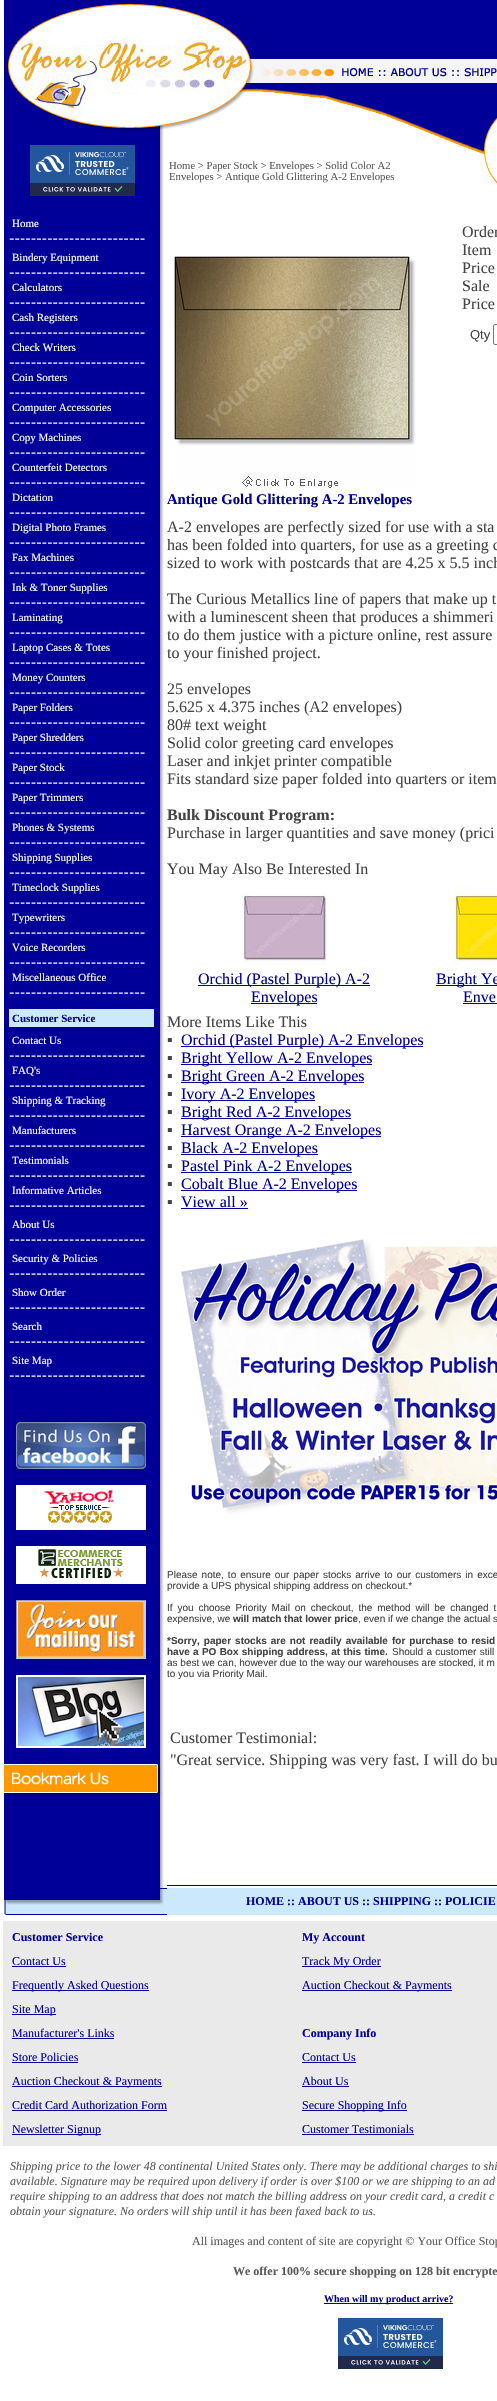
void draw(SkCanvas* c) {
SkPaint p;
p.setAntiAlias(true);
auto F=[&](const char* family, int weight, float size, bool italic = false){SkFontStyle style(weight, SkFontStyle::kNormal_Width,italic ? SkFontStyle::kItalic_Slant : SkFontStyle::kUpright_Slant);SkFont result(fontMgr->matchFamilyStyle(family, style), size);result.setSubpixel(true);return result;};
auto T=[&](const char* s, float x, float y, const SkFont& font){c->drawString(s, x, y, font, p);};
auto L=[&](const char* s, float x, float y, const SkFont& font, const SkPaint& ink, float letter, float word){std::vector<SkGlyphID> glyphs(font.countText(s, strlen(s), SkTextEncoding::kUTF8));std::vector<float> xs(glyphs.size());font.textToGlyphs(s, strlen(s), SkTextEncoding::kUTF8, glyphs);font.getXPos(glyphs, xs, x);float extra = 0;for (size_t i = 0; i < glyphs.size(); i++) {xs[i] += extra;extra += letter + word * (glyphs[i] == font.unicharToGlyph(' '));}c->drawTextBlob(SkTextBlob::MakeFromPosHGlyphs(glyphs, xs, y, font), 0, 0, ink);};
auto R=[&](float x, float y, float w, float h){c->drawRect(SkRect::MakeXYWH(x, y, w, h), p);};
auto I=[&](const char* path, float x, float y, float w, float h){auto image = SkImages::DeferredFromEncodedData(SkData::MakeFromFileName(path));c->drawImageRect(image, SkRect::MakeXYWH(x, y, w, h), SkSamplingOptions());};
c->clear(0xffffffff);
I("1.png",3,0,250,58);
p.setColor(0xff000099);
R(253,0,244,58);
I("2.png",4,58,249,45);
I("3.png",253,58,202,45);
I("4.png",455,58,42,45);
I("5.png",4,103,160,1745);
I("6.png",29,103,138,29);
I("7.png",30,145,105,51);
auto f1 = F("Liberation Serif",400,11);
p.setColor(0xffffffff);
T("Home",12,227,f1);
I("8.png",9,238,136,2);
T("Bindery Equipment",12,261,f1);
I("8.png",9,272,136,2);
T("Calculators",12,291,f1);
I("8.png",9,302,136,2);
T("Cash Registers",12,321,f1);
I("8.png",9,332,136,2);
T("Check Writers",12,351,f1);
I("8.png",9,362,136,2);
T("Coin Sorters",12,381,f1);
I("8.png",9,392,136,2);
T("Computer Accessories",12,411,f1);
I("8.png",9,422,136,2);
T("Copy Machines",12,441,f1);
I("8.png",9,452,136,2);
T("Counterfeit Detectors",12,471,f1);
I("8.png",9,482,136,2);
T("Dictation",12,501,f1);
I("8.png",9,512,136,2);
T("Digital Photo Frames",12,531,f1);
I("8.png",9,542,136,2);
T("Fax Machines",12,561,f1);
I("8.png",9,572,136,2);
T("Ink & Toner Supplies",12,591,f1);
I("8.png",9,602,136,2);
T("Laminating",12,621,f1);
I("8.png",9,632,136,2);
T("Laptop Cases & Totes",12,651,f1);
I("8.png",9,662,136,2);
T("Money Counters",12,681,f1);
I("8.png",9,692,136,2);
T("Paper Folders",12,711,f1);
I("8.png",9,722,136,2);
T("Paper Shredders",12,741,f1);
I("8.png",9,752,136,2);
T("Paper Stock",12,771,f1);
I("8.png",9,782,136,2);
T("Paper Trimmers",12,801,f1);
I("8.png",9,812,136,2);
T("Phones & Systems",12,831,f1);
I("8.png",9,842,136,2);
T("Shipping Supplies",12,861,f1);
I("8.png",9,872,136,2);
T("Timeclock Supplies",12,891,f1);
I("8.png",9,902,136,2);
T("Typewriters",12,921,f1);
I("8.png",9,932,136,2);
T("Voice Recorders",12,951,f1);
I("8.png",9,962,136,2);
T("Miscellaneous Office",12,981,f1);
I("8.png",9,992,136,2);
p.setColor(0xffcbe8fc);
R(9,1009,145,18);
auto f2 = F("Liberation Serif",700,11);
p.setColor(0xff000099);
T("Customer Service",12,1022,f2);
p.setColor(0xffffffff);
T("Contact Us",12,1044,f1);
I("8.png",9,1055,136,2);
T("FAQ's",12,1074,f1);
I("8.png",9,1085,136,2);
T("Shipping & Tracking",12,1104,f1);
I("8.png",9,1115,136,2);
T("Manufacturers",12,1134,f1);
I("8.png",9,1145,136,2);
T("Testimonials",12,1164,f1);
I("8.png",9,1175,136,2);
T("Informative Articles",12,1194,f1);
I("8.png",9,1205,136,2);
T("About Us",12,1228,f1);
I("8.png",9,1239,136,2);
T("Security & Policies",12,1262,f1);
I("8.png",9,1273,136,2);
T("Show Order",12,1296,f1);
I("8.png",9,1307,136,2);
T("Search",12,1330,f1);
I("8.png",9,1341,136,2);
T("Site Map",12,1364,f1);
I("8.png",9,1375,136,2);
I("9.png",16,1422,130,47);
I("10.png",16,1485,130,45);
I("11.png",16,1546,130,38);
I("12.png",16,1600,130,59);
I("13.png",16,1675,130,73);
I("14.png",4,1764,157,33);
I("15.png",167,103,288,41);
I("16.png",455,103,42,82);
auto f3 = F("Liberation Serif",400,10.7);
p.setColor(0xff5a5a5a);
T("Home > Paper Stock > Envelopes > Solid Color A2",169,169,f3);
T("Envelopes > Antique Gold Glittering A-2 Envelopes",169,180,f3);
I("17.png",172,256,244,232);
auto f4 = F("Liberation Serif",400,16);
p.setColor(0xff444444);
T("Order",462,237,f4);
T("Item",462,255,f4);
T("Price",462,273,f4);
T("Sale",462,291,f4);
T("Price",462,309,f4);
auto f5 = F("Liberation Sans",400,13);
T("Qty",470,339,f5);
p.setStroke(true);
p.setStrokeWidth(1);
p.setColor(0xff767676);
c->drawRoundRect(SkRect::MakeXYWH(493.5,324.5,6,20),1.5,1.5,p);
auto f6 = F("Liberation Serif",700,14.7);
p.setStroke(false);
p.setColor(0xff000099);
T("Antique Gold Glittering A-2 Envelopes",167,504,f6);
p.setColor(0xff444444);
T("A-2 envelopes are perfectly sized for use with a sta",167,532,f4);
T("has been folded into quarters, for use as a greeting c",167,550,f4);
T("sized to work with postcards that are 4.25 x 5.5 inch",167,568,f4);
T("The Curious Metallics line of papers that make up t",167,604,f4);
T("with a luminescent sheen that produces a shimmeri",167,622,f4);
T("to do them justice with a picture online, rest assure",167,640,f4);
T("to your finished project.",167,658,f4);
T("25 envelopes",167,694,f4);
T("5.625 x 4.375 inches (A2 envelopes)",167,712,f4);
T("80# text weight",167,730,f4);
T("Solid color greeting card envelopes",167,748,f4);
T("Laser and inkjet printer compatible",167,766,f4);
T("Fits standard size paper folded into quarters or item",167,784,f4);
auto f7 = F("Liberation Serif",700,16);
T("Bulk Discount Program:",167,820,f7);
T("Purchase in larger quantities and save money (prici",167,838,f4);
T("You May Also Be Interested In",167,874,f4);
I("18.png",242,893,85,72);
p.setColor(0xff000099);
R(198,985,172,1);
T("Orchid (Pastel Purple) A-2",198,984,f4);
R(251,1003,66,1);
T("Envelopes",251,1002,f4);
I("19.png",454,885,43,81);
R(436,985,61,1);
T("Bright Ye",436,984,f4);
T("Enve",463,1002,f4);
R(463,1003,34,1);
p.setColor(0xff444444);
T("More Items Like This",167,1027,f4);
T("▪",167,1045,f4);
p.setColor(0xff000099);
R(181,1046,242,1);
T("Orchid (Pastel Purple) A-2 Envelopes",181,1045,f4);
p.setColor(0xff444444);
T("▪",167,1063,f4);
p.setColor(0xff000099);
R(181,1064,191,1);
T("Bright Yellow A-2 Envelopes",181,1063,f4);
p.setColor(0xff444444);
T("▪",167,1081,f4);
p.setColor(0xff000099);
R(181,1082,183,1);
T("Bright Green A-2 Envelopes",181,1081,f4);
p.setColor(0xff444444);
T("▪",167,1099,f4);
p.setColor(0xff000099);
R(181,1100,134,1);
T("Ivory A-2 Envelopes",181,1099,f4);
p.setColor(0xff444444);
T("▪",167,1117,f4);
p.setColor(0xff000099);
R(181,1118,170,1);
T("Bright Red A-2 Envelopes",181,1117,f4);
p.setColor(0xff444444);
T("▪",167,1135,f4);
p.setColor(0xff000099);
R(181,1136,200,1);
T("Harvest Orange A-2 Envelopes",181,1135,f4);
p.setColor(0xff444444);
T("▪",167,1153,f4);
p.setColor(0xff000099);
R(181,1154,137,1);
T("Black A-2 Envelopes",181,1153,f4);
p.setColor(0xff444444);
T("▪",167,1171,f4);
p.setColor(0xff000099);
R(181,1172,171,1);
T("Pastel Pink A-2 Envelopes",181,1171,f4);
p.setColor(0xff444444);
T("▪",167,1189,f4);
p.setColor(0xff000099);
R(181,1190,176,1);
T("Cobalt Blue A-2 Envelopes",181,1189,f4);
p.setColor(0xff444444);
T("▪",167,1207,f4);
p.setColor(0xff000099);
T("View all »",181,1207,f4);
R(181,1208,67,1);
I("20.png",181,1239,316,275);
auto f8 = F("Liberation Sans",400,10);
p.setColor(0xff444444);
L("Please note, to ensure our paper stocks arrive to our customers in exce",167,1578,f8,p,0,1.25);
T("provide a UPS physical shipping address on checkout.*",167,1589,f8);
L("If you choose Priority Mail on checkout, the method will be changed t",167,1611,f8,p,0,2.1);
T("expensive, we",167,1622,f8);
auto f9 = F("Liberation Sans",700,10);
T("will match that lower price",233,1622,f9);
T(", even if we change the actual s",358,1622,f8);
L("*Sorry, paper stocks are not readily available for purchase to resid",167,1644,f9,p,0,1.25);
L("have a PO Box shipping address, at this time.",167,1655,f9,p,0,.5);
L("Should a customer still",392,1655,f8,p,0,.5);
T("as best we can, however due to the way our warehouses are stocked, it m",167,1666,f8);
T("to you via Priority Mail.",167,1677,f8);
T("Customer Testimonial:",170,1743,f4);
T("\"Great service. Shipping was very fast. I will do bu",170,1765,f4);
I("21.png",4,1848,160,38);
p.setColor(0xff000099);
R(167,1885,330,1);
I("22.png",4,1886,163,29);
p.setColor(0xffcbe8fc);
R(167,1888,330,27);
auto f10 = F("Liberation Serif",700,12);
p.setColor(0xff000099);
T("HOME :: ABOUT US :: SHIPPING :: POLICIE",246,1905,f10);
p.setColor(0xffeaeaea);
R(3,1921,494,225);
p.setColor(0xff000099);
T("Customer Service",12,1941,f10);
T("My Account",302,1941,f10);
auto f11 = F("Liberation Serif",400,12);
T("Contact Us",12,1965,f11);
R(12,1966,54,1);
R(302,1966,79,1);
T("Track My Order",302,1965,f11);
R(12,1990,137,1);
T("Frequently Asked Questions",12,1989,f11);
R(302,1990,150,1);
T("Auction Checkout & Payments",302,1989,f11);
R(12,2014,44,1);
T("Site Map",12,2013,f11);
T("Manufacturer's Links",12,2037,f11);
R(12,2038,102,1);
T("Company Info",302,2037,f10);
T("Store Policies",12,2061,f11);
R(12,2062,66,1);
T("Contact Us",302,2061,f11);
R(302,2062,54,1);
R(12,2086,150,1);
T("Auction Checkout & Payments",12,2085,f11);
T("About Us",302,2085,f11);
R(302,2086,47,1);
T("Credit Card Authorization Form",12,2109,f11);
R(12,2110,155,1);
R(302,2110,105,1);
T("Secure Shopping Info",302,2109,f11);
R(12,2134,89,1);
T("Newsletter Signup",12,2133,f11);
T("Customer Testimonials",302,2133,f11);
R(302,2134,112,1);
auto f12 = F("Liberation Serif",400,12,true);
p.setColor(0xff5a5a5a);
T("Shipping price to the lower 48 continental United States only. There may be additional charges to shi",10,2170,f12);
T("available. Signature may be required upon delivery if order is over $100 or we are shipping to an ad",10,2185,f12);
T("require shipping to an address that does not match the billing address on your credit card, a credit c",10,2200,f12);
T("obtain your signature. No orders will ship until it has been faxed back to us.",10,2215,f12);
T("All images and content of site are copyright © Your Office Stop",192,2245,f11);
T("We offer 100% secure shopping on 128 bit encrypte",233,2275,f10);
p.setColor(0xff000099);
R(324,2303,129,1);
auto f13 = F("Liberation Serif",700,10);
T("When will my product arrive?",324,2302,f13);
I("7.png",338,2318,105,51);
}
